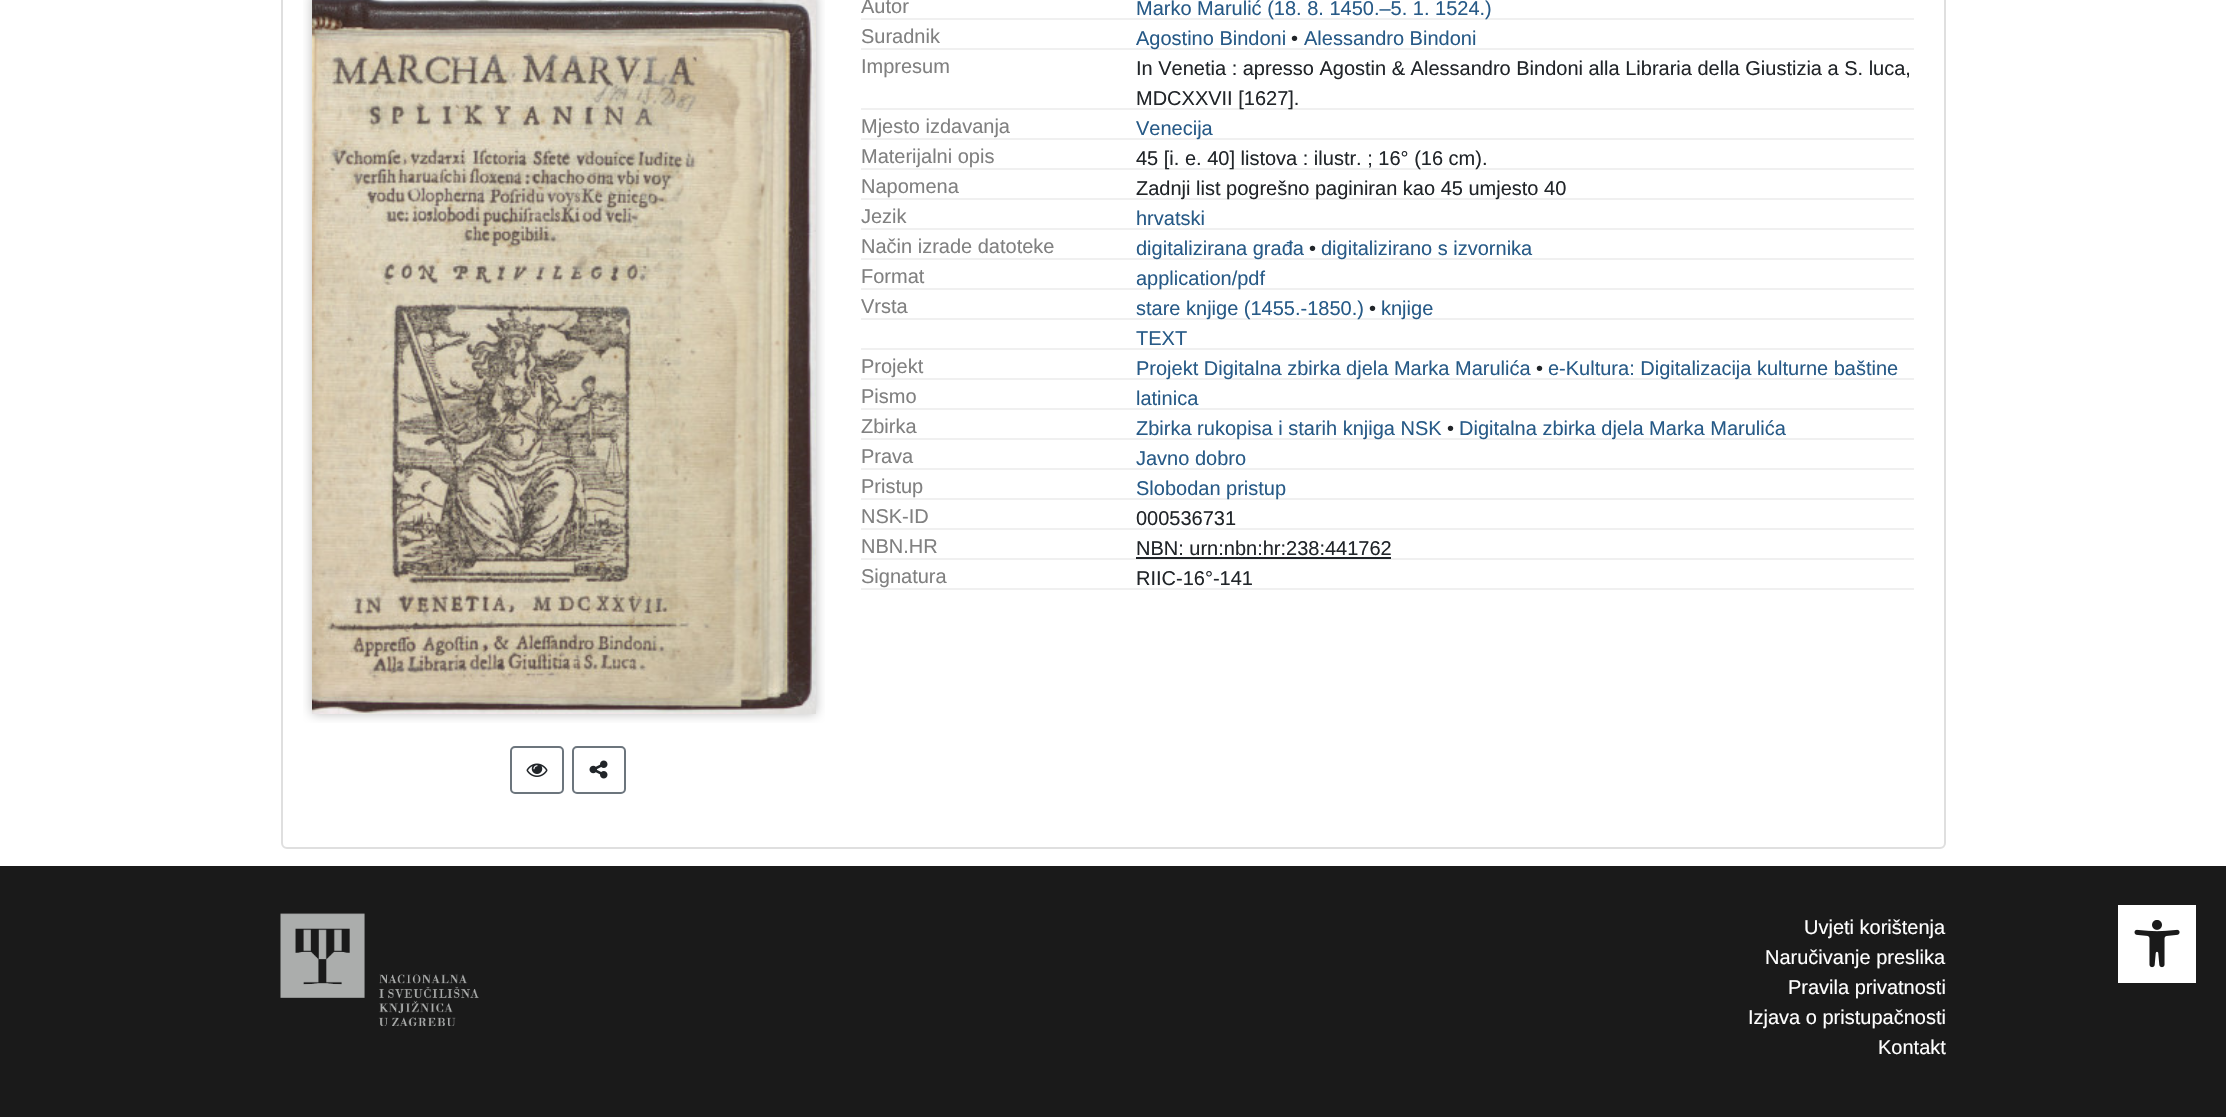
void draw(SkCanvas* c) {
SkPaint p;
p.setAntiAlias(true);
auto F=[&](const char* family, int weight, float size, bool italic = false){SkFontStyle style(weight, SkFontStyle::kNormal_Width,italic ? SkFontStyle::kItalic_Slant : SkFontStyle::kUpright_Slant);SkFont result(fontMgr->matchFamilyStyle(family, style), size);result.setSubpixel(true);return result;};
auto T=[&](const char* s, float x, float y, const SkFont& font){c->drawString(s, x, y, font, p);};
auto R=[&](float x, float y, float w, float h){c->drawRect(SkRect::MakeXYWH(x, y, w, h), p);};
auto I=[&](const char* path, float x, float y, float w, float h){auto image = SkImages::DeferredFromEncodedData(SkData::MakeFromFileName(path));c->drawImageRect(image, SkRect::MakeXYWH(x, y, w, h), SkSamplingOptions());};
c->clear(0xffffffff);
p.setStroke(true);
p.setStrokeWidth(2);
p.setColor(0xffdfdfdf);
c->drawRoundRect(SkRect::MakeXYWH(282,-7,1663,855),5,5,p);
I("1.png",303,0,522,723);
p.setColor(0xff6c757d);
c->drawRoundRect(SkRect::MakeXYWH(511,747,52,46),4,4,p);
I("2.png",526,763,22,14);
c->drawRoundRect(SkRect::MakeXYWH(573,747,52,46),4,4,p);
I("3.png",589,760,19,19);
auto f1 = F("Liberation Sans",400,20);
p.setStroke(false);
p.setColor(0xff808080);
T("Autor",861,13,f1);
p.setColor(0xfff0f0f0);
R(861,18,1053,2);
p.setColor(0xff275a87);
T("Marko Marulić (18. 8. 1450.–5. 1. 1524.)",1136,15,f1);
p.setColor(0xff808080);
T("Suradnik",861,43,f1);
p.setColor(0xfff0f0f0);
R(861,48,1053,2);
p.setColor(0xff275a87);
T("Agostino Bindoni",1136,45,f1);
p.setColor(0xff212529);
T("•",1291,45,f1);
p.setColor(0xff275a87);
T("Alessandro Bindoni",1304,45,f1);
p.setColor(0xff808080);
T("Impresum",861,73,f1);
p.setColor(0xff212529);
T("In Venetia : apresso Agostin & Alessandro Bindoni alla Libraria della Giustizia a S. luca,",1136,75,f1);
p.setColor(0xfff0f0f0);
R(861,108,1053,2);
p.setColor(0xff212529);
T("MDCXXVII [1627].",1136,105,f1);
p.setColor(0xff808080);
T("Mjesto izdavanja",861,133,f1);
p.setColor(0xfff0f0f0);
R(861,138,1053,2);
p.setColor(0xff275a87);
T("Venecija",1136,135,f1);
p.setColor(0xff808080);
T("Materijalni opis",861,163,f1);
p.setColor(0xfff0f0f0);
R(861,168,1053,2);
p.setColor(0xff212529);
T("45 [i. e. 40] listova : ilustr. ; 16° (16 cm).",1136,165,f1);
p.setColor(0xff808080);
T("Napomena",861,193,f1);
p.setColor(0xfff0f0f0);
R(861,198,1053,2);
p.setColor(0xff212529);
T("Zadnji list pogrešno paginiran kao 45 umjesto 40",1136,195,f1);
p.setColor(0xff808080);
T("Jezik",861,223,f1);
p.setColor(0xff275a87);
T("hrvatski",1136,225,f1);
p.setColor(0xfff0f0f0);
R(861,228,1053,2);
p.setColor(0xff808080);
T("Način izrade datoteke",861,253,f1);
p.setColor(0xfff0f0f0);
R(861,258,1053,2);
p.setColor(0xff275a87);
T("digitalizirana građa",1136,255,f1);
p.setColor(0xff212529);
T("•",1309,255,f1);
p.setColor(0xff275a87);
T("digitalizirano s izvornika",1321,255,f1);
p.setColor(0xff808080);
T("Format",861,283,f1);
p.setColor(0xfff0f0f0);
R(861,288,1053,2);
p.setColor(0xff275a87);
T("application/pdf",1136,285,f1);
p.setColor(0xff808080);
T("Vrsta",861,313,f1);
p.setColor(0xfff0f0f0);
R(861,318,1053,2);
p.setColor(0xff275a87);
T("stare knjige (1455.-1850.)",1136,315,f1);
p.setColor(0xff212529);
T("•",1369,315,f1);
p.setColor(0xff275a87);
T("knjige",1381,315,f1);
T("TEXT",1136,345,f1);
p.setColor(0xfff0f0f0);
R(861,348,1053,2);
p.setColor(0xff808080);
T("Projekt",861,373,f1);
p.setColor(0xfff0f0f0);
R(861,378,1053,2);
p.setColor(0xff275a87);
T("Projekt Digitalna zbirka djela Marka Marulića",1136,375,f1);
p.setColor(0xff212529);
T("•",1536,375,f1);
p.setColor(0xff275a87);
T("e-Kultura: Digitalizacija kulturne baštine",1548,375,f1);
p.setColor(0xff808080);
T("Pismo",861,403,f1);
p.setColor(0xff275a87);
T("latinica",1136,405,f1);
p.setColor(0xfff0f0f0);
R(861,408,1053,2);
p.setColor(0xff808080);
T("Zbirka",861,433,f1);
p.setColor(0xfff0f0f0);
R(861,438,1053,2);
p.setColor(0xff275a87);
T("Zbirka rukopisa i starih knjiga NSK",1136,435,f1);
p.setColor(0xff212529);
T("•",1447,435,f1);
p.setColor(0xff275a87);
T("Digitalna zbirka djela Marka Marulića",1459,435,f1);
p.setColor(0xff808080);
T("Prava",861,463,f1);
p.setColor(0xff275a87);
T("Javno dobro",1136,465,f1);
p.setColor(0xfff0f0f0);
R(861,468,1053,2);
p.setColor(0xff808080);
T("Pristup",861,493,f1);
p.setColor(0xfff0f0f0);
R(861,498,1053,2);
p.setColor(0xff275a87);
T("Slobodan pristup",1136,495,f1);
p.setColor(0xff808080);
T("NSK-ID",861,523,f1);
p.setColor(0xff212529);
T("000536731",1136,525,f1);
p.setColor(0xfff0f0f0);
R(861,528,1053,2);
p.setColor(0xff808080);
T("NBN.HR",861,553,f1);
p.setColor(0xff212529);
T("NBN: urn:nbn:hr:238:441762",1136,555,f1);
p.setColor(0xfff0f0f0);
R(861,558,1053,2);
p.setColor(0xff212529);
R(1136,557,255,2);
p.setColor(0xff808080);
T("Signatura",861,583,f1);
p.setColor(0xff212529);
T("RIIC-16°-141",1136,585,f1);
p.setColor(0xfff0f0f0);
R(861,588,1053,2);
p.setColor(0xff1a1a1a);
R(0,866,2226,251);
I("4.png",280,913,199,113);
p.setColor(0xffffffff);
T("Uvjeti korištenja",1804,934,f1);
T("Naručivanje preslika",1765,964,f1);
T("Pravila privatnosti",1788,994,f1);
T("Izjava o pristupačnosti",1748,1024,f1);
T("Kontakt",1878,1054,f1);
R(2118,905,78,78);
I("5.png",2134,920,46,48);
}
